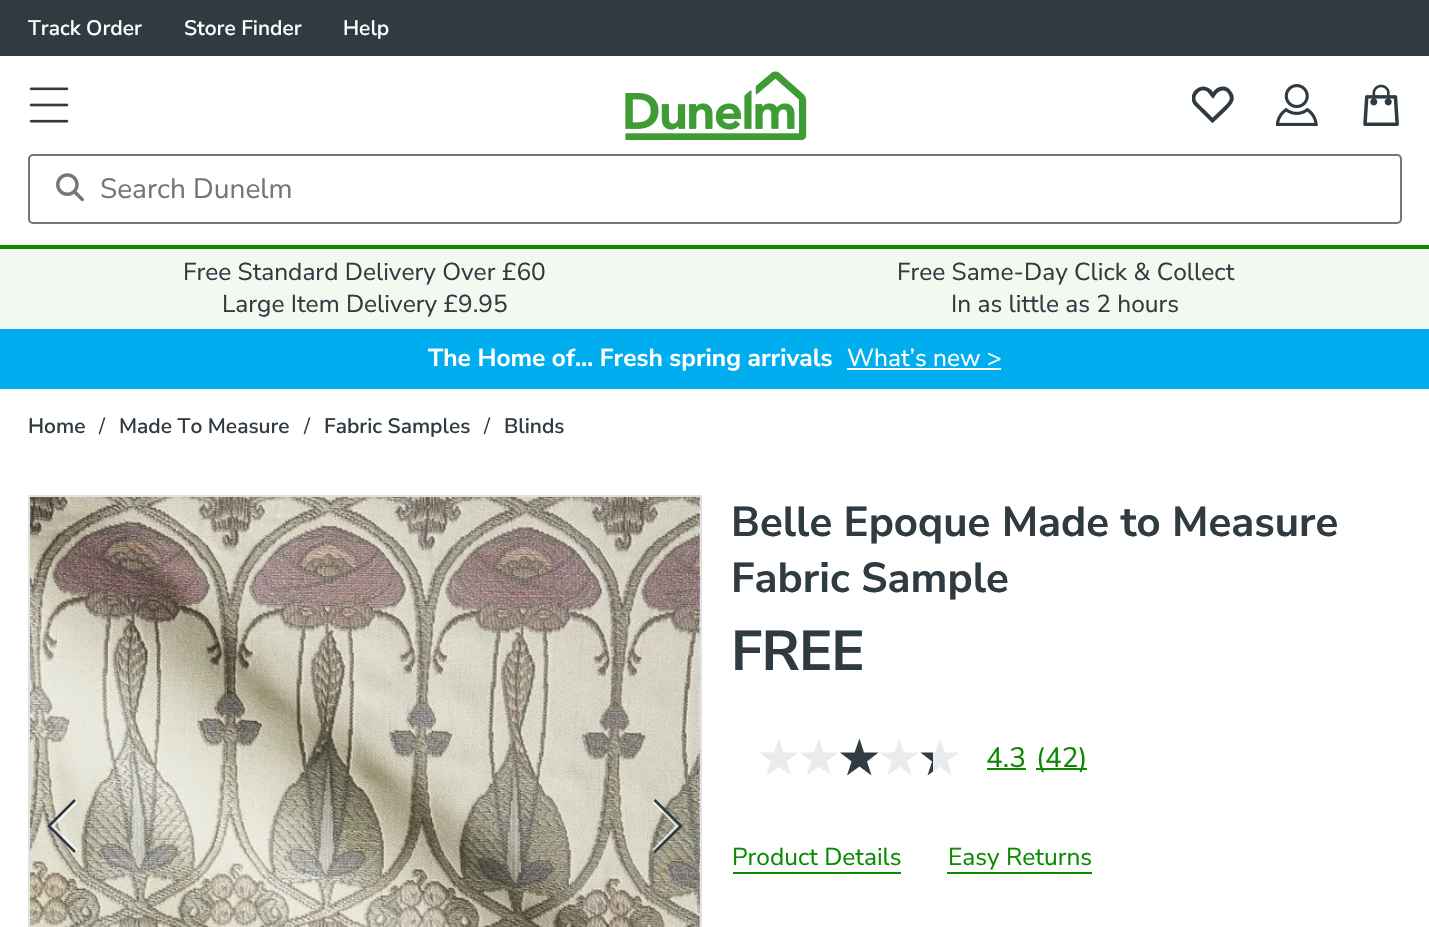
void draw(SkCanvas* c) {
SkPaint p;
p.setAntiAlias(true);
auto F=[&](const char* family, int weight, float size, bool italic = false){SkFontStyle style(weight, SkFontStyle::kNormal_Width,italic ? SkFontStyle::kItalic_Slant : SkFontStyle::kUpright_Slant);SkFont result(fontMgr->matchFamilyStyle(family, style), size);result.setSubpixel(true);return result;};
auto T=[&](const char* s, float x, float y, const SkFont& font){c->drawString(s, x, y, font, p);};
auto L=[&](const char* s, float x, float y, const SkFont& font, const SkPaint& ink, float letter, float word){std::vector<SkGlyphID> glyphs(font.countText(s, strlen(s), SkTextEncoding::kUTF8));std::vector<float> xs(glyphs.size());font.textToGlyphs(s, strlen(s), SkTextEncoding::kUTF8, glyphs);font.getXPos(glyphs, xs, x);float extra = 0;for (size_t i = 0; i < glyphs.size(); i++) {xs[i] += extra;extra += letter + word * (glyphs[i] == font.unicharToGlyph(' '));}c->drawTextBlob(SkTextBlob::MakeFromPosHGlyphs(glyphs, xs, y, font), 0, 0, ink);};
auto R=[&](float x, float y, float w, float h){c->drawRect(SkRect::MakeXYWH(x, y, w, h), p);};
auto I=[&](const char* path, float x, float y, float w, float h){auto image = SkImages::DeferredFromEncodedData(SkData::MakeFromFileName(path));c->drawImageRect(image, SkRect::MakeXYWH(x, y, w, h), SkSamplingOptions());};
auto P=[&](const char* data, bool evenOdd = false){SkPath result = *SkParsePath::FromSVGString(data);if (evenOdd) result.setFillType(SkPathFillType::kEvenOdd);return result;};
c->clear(0xffffffff);
p.setColor(0xff303b41);
R(0,0,1429,56);
auto f1 = F("Nunito Sans",600,21);
p.setColor(0xffffffff);
T("Track Order",28,35,f1);
T("Store Finder",184,35,f1);
T("Help",343,35,f1);
p.setColor(0xff0b8a00);
R(0,245,1429,4);
I("1.png",29,87,40,36);
I("2.png",625,71,182,69);
c->save();
c->clipRect(SkRect::MakeXYWH(1192,84,42,42));
p.setStroke(true);
p.setStrokeWidth(3.9);
p.setColor(0xff303b41);
c->drawPath(P("M1222.5 88.5c3 0 6 1.5 7.5 4.5c5 7-1.5 12-6.5 17l-11 10.5l-10.5-10.5c-2.5-2.5-5-4.5-7-7c-5.5-9 6-19 14-12.5c1.5 1.5 2.5 3.5 4 5c2-3.5 4.5-7 9.5-7z"),p);
c->restore();
I("3.png",1276,84,42,42);
I("4.png",1363,84,36,42);
p.setStrokeWidth(2);
p.setColor(0xff767676);
c->drawRoundRect(SkRect::MakeXYWH(29,155,1372,68),4,4,p);
I("5.png",56,173,28,28);
auto f2 = F("Nunito Sans",400,28);
p.setStroke(false);
p.setColor(0xff757575);
T("Search Dunelm",100,198,f2);
p.setColor(0xfff2f9f1);
R(0,249,1429,80);
auto f3 = F("Nunito Sans",400,24.5);
p.setColor(0xff303b41);
T("Free Standard Delivery Over £60",183,280,f3);
T("Large Item Delivery £9.95",222,312,f3);
T("Free Same-Day Click & Collect",897,280,f3);
T("In as little as 2 hours",951,312,f3);
p.setColor(0xff00aeef);
R(0,329,1429,60);
auto f4 = F("Nunito Sans",700,24.5);
p.setColor(0xffffffff);
T("The Home of… Fresh spring arrivals",428,366,f4);
T("What’s new >",847,366,f3);
R(847,368,154,2);
p.setColor(0xff303b41);
T("Home",28,433,f1);
auto f5 = F("Nunito Sans",400,21);
T("/",99,433,f5);
T("Made To Measure",119,433,f1);
T("/",304,433,f5);
T("Fabric Samples",324,433,f1);
T("/",484,433,f5);
T("Blinds",504,433,f1);
p.setStroke(true);
p.setColor(0xffe1e1e1);
c->drawRect(SkRect::MakeXYWH(29,496,672,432),p);
I("6.png",30,497,670,430);
p.setStrokeWidth(2.5);
p.setColor(0xb3ffffff);
c->drawPath(P("M77 850.5l-24.5-24.5l24.5-24.5"),p);
p.setStrokeJoin(SkPaint::kRound_Join);
p.setColor(0xff303b41);
c->drawPath(P("M75 852l-26-26l26-26"),p);
p.setStrokeJoin(SkPaint::kMiter_Join);
p.setColor(0xb3ffffff);
c->drawPath(P("M653 850.5l24-24.5l-24-24.5"),p);
p.setStrokeJoin(SkPaint::kRound_Join);
p.setColor(0xff303b41);
c->drawPath(P("M654.5 852l26.5-26l-26.5-26"),p);
auto f6 = F("Nunito Sans",700,42);
p.setStroke(false);
T("Belle Epoque Made to Measure",731,536,f6);
T("Fabric Sample",731,592,f6);
auto f7 = F("Nunito Sans",700,56);
L("FREE",731,670,f7,p,-1,0);
p.setColor(0xffeaebec);
c->drawPath(P("M798 752.5h-14.5l-4.5-14l-5 14h-14.5l11.5 9l-4.5 14l12.5-9l12 9l-4.5-14z"),p);
c->drawPath(P("M838 752.5h-14.5l-4.5-14l-5 14h-14l11.5 9l-5 14l12.5-9l12.5 9l-5-14z"),p);
{
const SkColor colors[] = {0xff303c42,0xffeaebec};
const float stops[] = {0,.01};
const SkPoint ends[] = {{878,739}, {879,739}};
p.setShader(SkGradientShader::MakeLinear(ends, colors, stops, 2, SkTileMode::kClamp));
p.setAlpha(255);
}
c->drawPath(P("M878.5 752.5h-14.5l-4.5-14l-5 14h-14.5l11.5 9l-4.5 14l12.5-9l12 9l-4.5-14z"),p);
p.setShader(nullptr);
p.setColor(0xffeaebec);
c->drawPath(P("M919 752.5h-15l-4.5-14l-5 14h-14.5l12 9l-5 14l12.5-9l12.5 9l-5-14z"),p);
{
const SkColor colors[] = {0xff303c42,0xffeaebec};
const float stops[] = {0,.01};
const SkPoint ends[] = {{933,739}, {959,739}};
p.setShader(SkGradientShader::MakeLinear(ends, colors, stops, 2, SkTileMode::kClamp));
p.setAlpha(255);
}
c->drawPath(P("M959 752.5h-14.5l-4.5-14l-5 14h-14.5l11.5 9l-4.5 14l12.5-9l12 9l-4.5-14z"),p);
p.setShader(nullptr);
p.setColor(0xff0b8a00);
T("4.3",986,767,f2);
R(987,768,39,2);
R(1036,768,51,2);
T("(42)",1036,767,f2);
T("Product Details",732,865,f3);
R(733,872,168,2);
T("Easy Returns",948,865,f3);
R(947,872,145,2);
}
